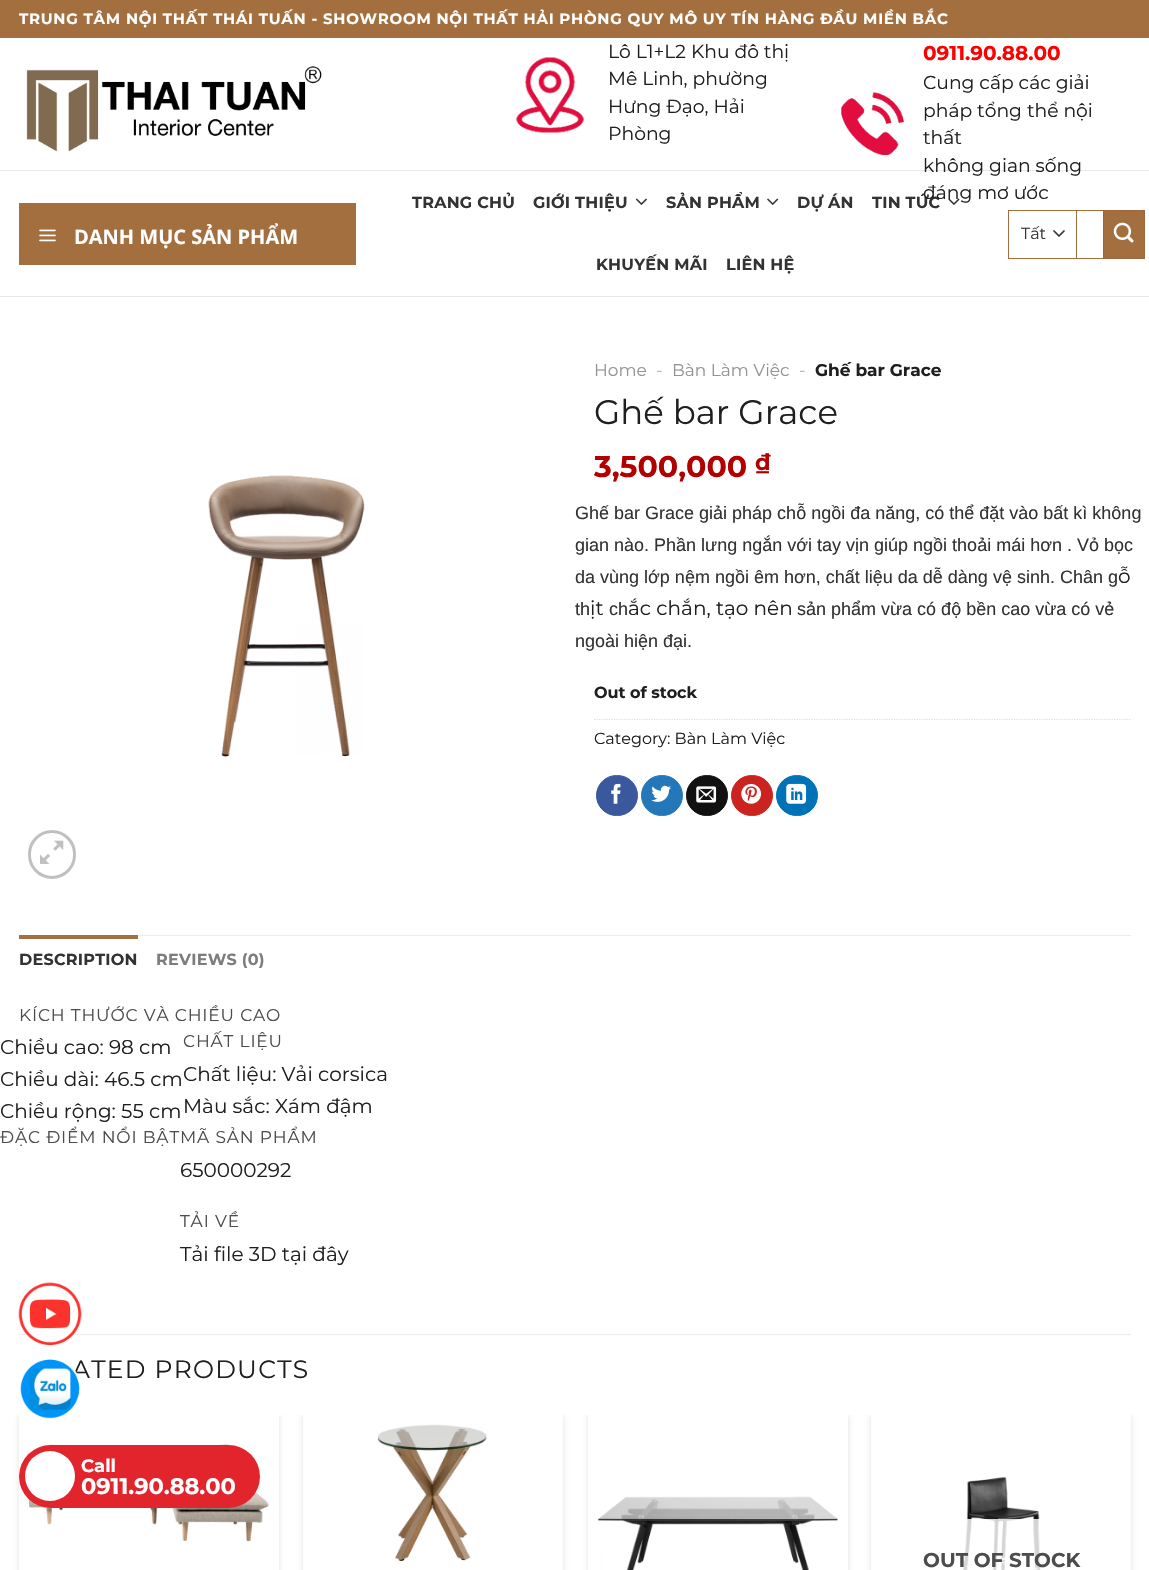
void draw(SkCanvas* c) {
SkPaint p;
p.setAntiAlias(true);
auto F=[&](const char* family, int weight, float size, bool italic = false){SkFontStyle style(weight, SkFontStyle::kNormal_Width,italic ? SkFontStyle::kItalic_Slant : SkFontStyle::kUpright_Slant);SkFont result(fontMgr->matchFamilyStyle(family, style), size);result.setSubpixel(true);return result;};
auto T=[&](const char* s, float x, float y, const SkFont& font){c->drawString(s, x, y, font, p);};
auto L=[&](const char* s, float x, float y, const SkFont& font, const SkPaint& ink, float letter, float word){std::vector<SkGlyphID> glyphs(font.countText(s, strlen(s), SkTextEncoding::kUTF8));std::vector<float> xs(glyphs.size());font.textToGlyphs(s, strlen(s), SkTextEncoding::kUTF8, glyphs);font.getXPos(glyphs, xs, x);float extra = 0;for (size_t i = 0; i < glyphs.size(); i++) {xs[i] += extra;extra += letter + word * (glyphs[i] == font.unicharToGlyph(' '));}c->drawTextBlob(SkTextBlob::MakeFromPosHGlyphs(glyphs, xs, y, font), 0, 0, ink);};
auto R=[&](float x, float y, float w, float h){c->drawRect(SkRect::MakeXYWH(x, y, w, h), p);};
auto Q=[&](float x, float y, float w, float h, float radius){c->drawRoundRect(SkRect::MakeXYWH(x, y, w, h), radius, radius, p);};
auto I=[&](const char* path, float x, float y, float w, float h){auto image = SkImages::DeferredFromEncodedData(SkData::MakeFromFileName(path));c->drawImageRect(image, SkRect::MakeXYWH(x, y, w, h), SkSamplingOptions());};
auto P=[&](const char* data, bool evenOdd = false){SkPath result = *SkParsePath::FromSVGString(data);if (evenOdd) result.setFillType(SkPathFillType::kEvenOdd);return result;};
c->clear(0xffffffff);
p.setColor(0xffa36f3f);
R(0,0,1149,38);
auto f1 = F("Montserrat",700,15);
p.setColor(0xffffffff);
L("TRUNG TÂM NỘI THẤT THÁI TUẤN - SHOWROOM NỘI THẤT HẢI PHÒNG QUY MÔ UY TÍN HÀNG ĐẦU MIỀN BẮC",19,24,f1,p,.75,0);
I("1.png",26,66,296,86);
I("2.png",516,57,68,76);
auto f2 = F("Montserrat",400,18.75);
p.setColor(0xff1f1f1f);
T("Lô L1+L2 Khu đô thị",608,58,f2);
T("Mê Linh, phường",608,85,f2);
T("Hưng Đạo, Hải",608,113,f2);
T("Phòng",608,140,f2);
I("3.png",841,92,63,63);
auto f3 = F("Montserrat",700,20);
p.setColor(0xffff0000);
T("0911.90.88.00",923,60,f3);
p.setColor(0xff1f1f1f);
T("Cung cấp các giải",923,89,f2);
T("pháp tổng thể nội",923,117,f2);
T("thất",923,144,f2);
p.setColor(0xffe8e8e8);
R(0,170,1149,1);
p.setColor(0xff1f1f1f);
T("không gian sống",923,172,f2);
auto f4 = F("Montserrat",700,16);
p.setColor(0xff333333);
L("TIN TỨC",872,208,f4,p,.25,0);
I("7.png",948,198,12,7);
p.setColor(0xff1f1f1f);
T("đáng mơ ước",923,199,f2);
p.setColor(0xffe8e8e8);
R(0,296,1149,1);
p.setColor(0xffa36f3f);
R(19,203,337,62);
I("4.png",39,229,17,13);
auto f5 = F("Open Sans",700,20);
p.setColor(0xffffffff);
T("DANH MỤC SẢN PHẨM",74,244,f5);
p.setColor(0xff333333);
L("TRANG CHỦ",412,208,f4,p,.25,0);
L("GIỚI THIỆU",533,208,f4,p,.25,0);
I("5.png",635,198,12,7);
L("SẢN PHẨM",666,208,f4,p,.25,0);
I("6.png",767,198,12,7);
L("DỰ ÁN",797,208,f4,p,.25,0);
L("KHUYẾN MÃI",596,270,f4,p,.25,0);
L("LIÊN HỆ",726,270,f4,p,.25,0);
p.setStroke(true);
p.setStrokeWidth(1.7);
p.setStrokeCap(SkPaint::kRound_Cap);
p.setStrokeJoin(SkPaint::kRound_Join);
c->drawPath(P("M1054 231l5 5l5-5"),p);
p.setStroke(false);
p.setColor(0xffa36f3f);
R(1008,210,95,1);
R(1008,258,95,1);
R(1008,210,1,49);
auto f6 = F("Montserrat",400,16);
p.setColor(0xff333333);
T("Tất",1021,239,f6);
p.setColor(0xffa36f3f);
R(1076,210,1,49);
c->drawRect(SkRect::MakeXYWH(1103.5,210.5,41,48),p);
p.setStroke(true);
p.setStrokeWidth(1);
p.setStrokeCap(SkPaint::kButt_Cap);
p.setStrokeJoin(SkPaint::kMiter_Join);
p.setColor(0xff9b693c);
c->drawRect(SkRect::MakeXYWH(1103.5,210.5,41,48),p);
I("8.png",1113,222,21,21);
I("9.png",208,475,157,282);
p.setStrokeWidth(3);
p.setColor(0xffc0c0c0);
c->drawRoundRect(SkRect::MakeXYWH(29.5,831.5,45,46),22.5,22.5,p);
I("10.png",40,840,24,24);
auto f7 = F("Montserrat",400,17);
p.setStroke(false);
p.setColor(0xff949494);
T("Home",594,376,f7);
p.setColor(0xffb2b2b2);
T("-",656,376,f7);
p.setColor(0xff949494);
T("Bàn Làm Việc",672,376,f7);
p.setColor(0xffb2b2b2);
T("-",799,376,f7);
auto f8 = F("Montserrat",700,17);
p.setColor(0xff1f1f1f);
T("Ghế bar Grace",815,376,f8);
auto f9 = F("Montserrat",400,34);
T("Ghế bar Grace",594,424,f9);
auto f10 = F("Montserrat",700,30);
p.setColor(0xffb20000);
T("3,500,000",594,477,f10);
auto f11 = F("Montserrat",700,22.5);
T("₫",755,470,f11);
auto f12 = F("Liberation Sans",400,18);
p.setColor(0xff333333);
T("Ghế bar Grace giải pháp chỗ ngồi đa năng, có thể đặt vào bất kì không",575,519,f12);
T("gian nào. Phần lưng ngắn với tay vịn giúp ngồi thoải mái hơn . Vỏ bọc",575,551,f12);
T("da vùng lớp nệm ngồi êm hơn, chất liệu da dễ dàng vệ sinh. Chân g",575,583,f12);
auto f13 = F("Montserrat",400,20);
p.setColor(0xff1f1f1f);
T("ỗ",1118,583,f13);
p.setColor(0xff333333);
T("th",575,615,f12);
p.setColor(0xff1f1f1f);
T("ịt",590,615,f13);
p.setColor(0xff333333);
T("ch",609,615,f12);
p.setColor(0xff1f1f1f);
T("ắc chắn, tạo nên",628,615,f13);
p.setColor(0xff333333);
T("sản phẩm vừa có độ bền cao vừa có vẻ",797,615,f12);
T("ngoài hiện đại.",575,647,f12);
p.setColor(0xff1f1f1f);
T("Out of stock",594,698,f4);
p.setStroke(true);
p.setStrokeWidth(1.2);
p.setColor(0xffdddddd);
p.setPathEffect(SkDashPathEffect::Make({{1.25f,1.25f}}, 0));
c->drawPath(P("M594 719.5h537"),p);
p.setPathEffect(nullptr);
p.setStroke(false);
p.setColor(0xff1f1f1f);
T("Category: Bàn Làm Việc",594,744,f6);
p.setColor(0xff3a589d);
c->drawRoundRect(SkRect::MakeXYWH(596.5,775.5,41,40),20,20,p);
p.setStroke(true);
p.setStrokeWidth(1);
c->drawRoundRect(SkRect::MakeXYWH(596.5,775.5,41,40),20,20,p);
I("11.png",611,783,10,21);
p.setStroke(false);
p.setColor(0xff2478ba);
c->drawRoundRect(SkRect::MakeXYWH(641.5,775.5,41,40),20,20,p);
p.setStroke(true);
c->drawRoundRect(SkRect::MakeXYWH(641.5,775.5,41,40),20,20,p);
I("12.png",651,785,20,17);
p.setStroke(false);
p.setColor(0xff111111);
c->drawRoundRect(SkRect::MakeXYWH(686.5,775.5,41,40),20,20,p);
p.setStroke(true);
c->drawRoundRect(SkRect::MakeXYWH(686.5,775.5,41,40),20,20,p);
I("13.png",696,786,21,17);
p.setStroke(false);
p.setColor(0xffcb2320);
c->drawRoundRect(SkRect::MakeXYWH(731.5,775.5,41,40),20,20,p);
p.setStroke(true);
c->drawRoundRect(SkRect::MakeXYWH(731.5,775.5,41,40),20,20,p);
I("14.png",741,783,20,21);
p.setStroke(false);
p.setColor(0xff0072b7);
c->drawRoundRect(SkRect::MakeXYWH(776.5,775.5,41,40),20,20,p);
p.setStroke(true);
c->drawRoundRect(SkRect::MakeXYWH(776.5,775.5,41,40),20,20,p);
I("15.png",786,783,21,21);
p.setStroke(false);
p.setColor(0xffececec);
R(138,935,993,1);
p.setColor(0xffa36f3f);
R(19,935,119,4);
p.setColor(0xff333333);
L("DESCRIPTION",19,965,f4,p,.25,0);
p.setColor(0xff7d7d7d);
L("REVIEWS (0)",156,965,f4,p,.25,0);
p.setColor(0xff4c4c4c);
L("KÍCH THƯỚC VÀ CHIỀU CAO",19,1021,f7,p,.85,0);
p.setColor(0xff1f1f1f);
T("Chiều cao: 98 cm",0,1054,f13);
T("Chiều dài: 46.5 cm",0,1086,f13);
T("Chiều rộng: 55 cm",0,1118,f13);
p.setColor(0xff4c4c4c);
L("CHẤT LIỆU",183,1047,f7,p,.85,0);
p.setColor(0xff1f1f1f);
T("Chất liệu: Vải corsica",183,1081,f13);
T("Màu sắc: Xám đậm",183,1113,f13);
p.setColor(0xff4c4c4c);
L("ĐẶC ĐIỂM NỔI BẬTMÃ SẢN PHẨM",0,1143,f7,p,.85,0);
p.setColor(0xff1f1f1f);
T("650000292",180,1177,f13);
p.setColor(0xff4c4c4c);
L("TẢI VỀ",180,1227,f7,p,.85,0);
p.setColor(0xff1f1f1f);
T("Tải file 3D tại đây",180,1261,f13);
p.setColor(0xffececec);
R(19,1334,1112,1);
auto f14 = F("Montserrat",400,25);
p.setColor(0xff1f1f1f);
L("ATED PRODUCTS",72,1378,f14,p,1.25,0);
c->save();
c->clipRect(SkRect::MakeXYWH(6,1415,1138,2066));
c->clipPath(P("M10 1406h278v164h-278zm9 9h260v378h-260z",true),true);
p.setColor(0x1f000000);
p.setMaskFilter(SkMaskFilter::MakeBlur(kNormal_SkBlurStyle, 2.5));
c->drawRect(SkRect::MakeXYWH(19,1415,260,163),p);
p.setMaskFilter(nullptr);
c->restore();
I("16.png",29,1444,240,98);
c->save();
c->clipRect(SkRect::MakeXYWH(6,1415,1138,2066));
c->clipPath(P("M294 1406h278v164h-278zm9 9h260v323h-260z",true),true);
p.setMaskFilter(SkMaskFilter::MakeBlur(kNormal_SkBlurStyle, 2.5));
c->drawRect(SkRect::MakeXYWH(303,1415,260,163),p);
p.setMaskFilter(nullptr);
c->restore();
I("17.png",377,1424,110,137);
c->save();
c->clipRect(SkRect::MakeXYWH(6,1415,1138,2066));
c->clipPath(P("M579 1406h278v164h-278zm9 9h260v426h-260z",true),true);
p.setMaskFilter(SkMaskFilter::MakeBlur(kNormal_SkBlurStyle, 2.5));
c->drawRect(SkRect::MakeXYWH(588,1415,260,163),p);
p.setMaskFilter(nullptr);
c->restore();
I("18.png",598,1496,240,74);
c->save();
c->clipRect(SkRect::MakeXYWH(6,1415,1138,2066));
c->clipPath(P("M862 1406h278v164h-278zm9 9h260v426h-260z",true),true);
p.setMaskFilter(SkMaskFilter::MakeBlur(kNormal_SkBlurStyle, 2.5));
c->drawRect(SkRect::MakeXYWH(871,1415,260,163),p);
p.setMaskFilter(nullptr);
c->restore();
I("19.png",963,1476,78,94);
p.setColor(0xcfffffff);
R(871,1519,170,51);
p.setColor(0xff4c4c4c);
T("OUT OF STOCK",923,1567,f3);
I("20.png",18,1282,64,63);
I("21.png",20,1359,60,60);
p.setColor(0xffe2242c);
Q(19,1445,241,63,31.5);
p.setColor(0xffffffff);
c->drawCircle(50,1476,25,p);
auto f15 = F("Montserrat",700,18);
T("Call",81,1472,f15);
T("0911.90.88.00",81,1494,f11);
}
